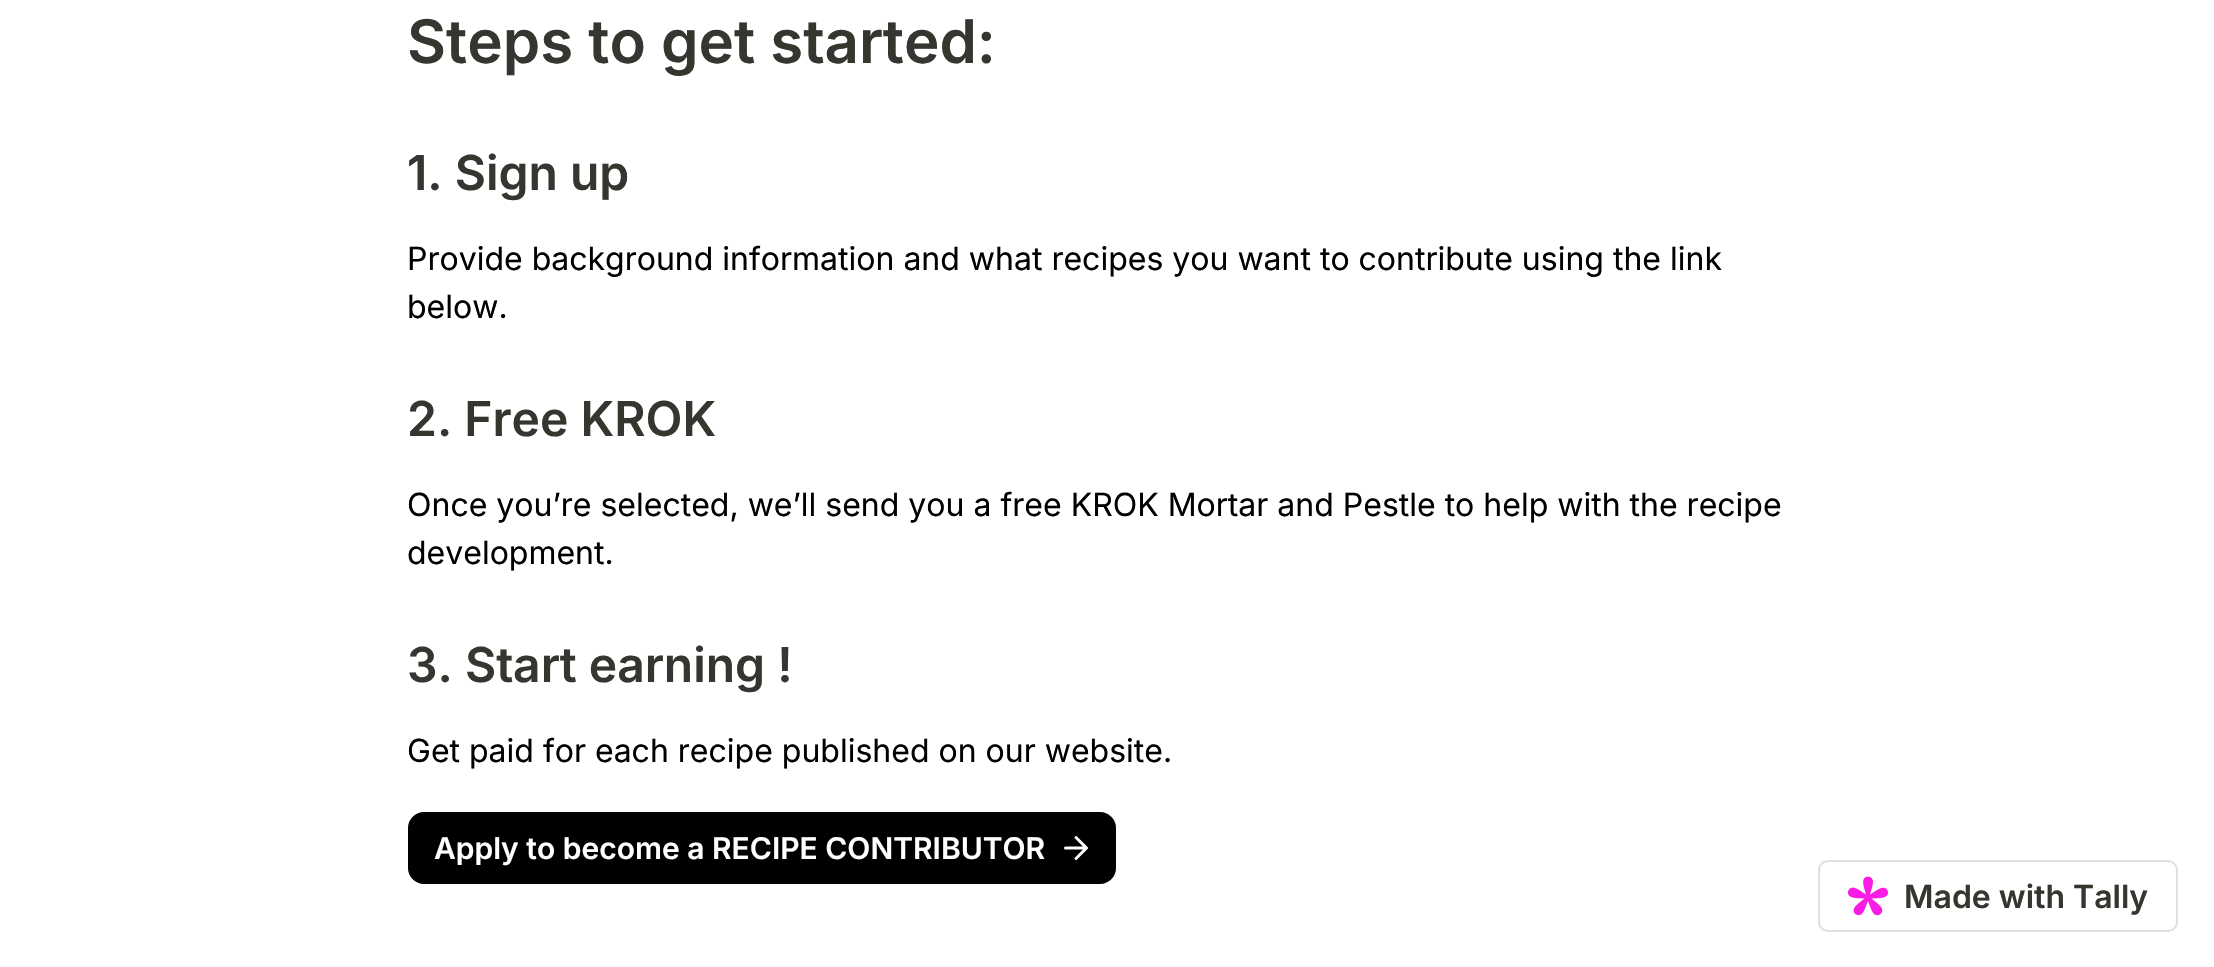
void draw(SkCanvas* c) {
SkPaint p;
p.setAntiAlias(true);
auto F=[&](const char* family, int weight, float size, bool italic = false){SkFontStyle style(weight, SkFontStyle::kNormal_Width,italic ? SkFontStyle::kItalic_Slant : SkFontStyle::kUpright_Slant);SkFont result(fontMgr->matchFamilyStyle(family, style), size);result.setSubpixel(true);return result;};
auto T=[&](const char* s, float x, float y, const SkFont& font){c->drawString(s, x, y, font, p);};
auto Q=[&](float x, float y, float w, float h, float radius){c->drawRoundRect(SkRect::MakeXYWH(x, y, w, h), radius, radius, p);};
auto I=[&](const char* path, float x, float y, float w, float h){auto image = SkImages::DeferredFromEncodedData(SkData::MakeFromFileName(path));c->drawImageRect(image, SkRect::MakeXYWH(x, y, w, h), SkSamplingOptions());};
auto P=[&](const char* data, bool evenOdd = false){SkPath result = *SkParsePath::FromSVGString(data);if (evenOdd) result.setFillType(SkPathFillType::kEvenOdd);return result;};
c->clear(0xffffffff);
auto f1 = F("Inter",600,60);
p.setColor(0xff37352f);
T("Steps to get started:",407,63,f1);
auto f2 = F("Inter",600,48);
T("1. Sign up",407,190,f2);
auto f3 = F("Inter",400,32);
p.setColor(0xff000000);
T("Provide background information and what recipes you want to contribute using the link",407,270,f3);
T("below.",407,318,f3);
p.setColor(0xff37352f);
T("2. Free KROK",407,436,f2);
p.setColor(0xff000000);
T("Once you’re selected, we’ll send you a free KROK Mortar and Pestle to help with the recipe",407,516,f3);
T("development.",407,564,f3);
p.setColor(0xff37352f);
T("3. Start earning !",407,682,f2);
p.setColor(0xff000000);
T("Get paid for each recipe published on our website.",407,762,f3);
Q(408,812,708,72,16);
auto f4 = F("Inter",600,30);
p.setColor(0xffffffff);
T("Apply to become a RECIPE CONTRIBUTOR",434,859,f4);
p.setStroke(true);
p.setStrokeWidth(3);
p.setStrokeCap(SkPaint::kRound_Cap);
p.setStrokeJoin(SkPaint::kRound_Join);
c->drawPath(P("M1065.5 848h21m-10.5-10.5l10.5 10.5l-10.5 10.5"),p);
p.setStrokeWidth(2);
p.setStrokeCap(SkPaint::kButt_Cap);
p.setStrokeJoin(SkPaint::kMiter_Join);
p.setColor(0xffdfdfde);
c->drawRoundRect(SkRect::MakeXYWH(1819,861,358,70),9,9,p);
I("1.png",1848,876,40,40);
auto f5 = F("Inter",600,32);
p.setStroke(false);
p.setColor(0xff37352f);
T("Made with Tally",1904,908,f5);
}
